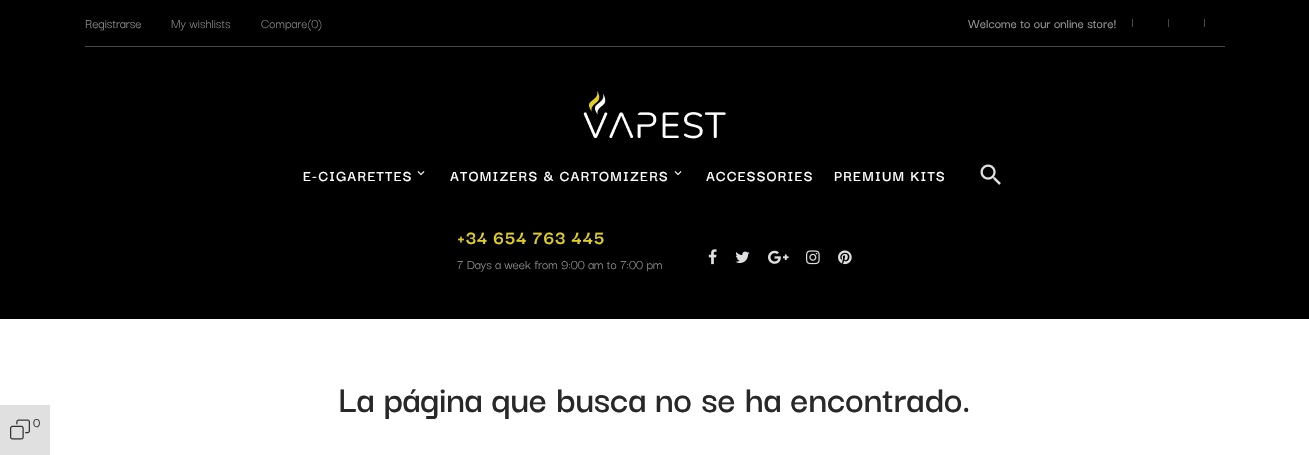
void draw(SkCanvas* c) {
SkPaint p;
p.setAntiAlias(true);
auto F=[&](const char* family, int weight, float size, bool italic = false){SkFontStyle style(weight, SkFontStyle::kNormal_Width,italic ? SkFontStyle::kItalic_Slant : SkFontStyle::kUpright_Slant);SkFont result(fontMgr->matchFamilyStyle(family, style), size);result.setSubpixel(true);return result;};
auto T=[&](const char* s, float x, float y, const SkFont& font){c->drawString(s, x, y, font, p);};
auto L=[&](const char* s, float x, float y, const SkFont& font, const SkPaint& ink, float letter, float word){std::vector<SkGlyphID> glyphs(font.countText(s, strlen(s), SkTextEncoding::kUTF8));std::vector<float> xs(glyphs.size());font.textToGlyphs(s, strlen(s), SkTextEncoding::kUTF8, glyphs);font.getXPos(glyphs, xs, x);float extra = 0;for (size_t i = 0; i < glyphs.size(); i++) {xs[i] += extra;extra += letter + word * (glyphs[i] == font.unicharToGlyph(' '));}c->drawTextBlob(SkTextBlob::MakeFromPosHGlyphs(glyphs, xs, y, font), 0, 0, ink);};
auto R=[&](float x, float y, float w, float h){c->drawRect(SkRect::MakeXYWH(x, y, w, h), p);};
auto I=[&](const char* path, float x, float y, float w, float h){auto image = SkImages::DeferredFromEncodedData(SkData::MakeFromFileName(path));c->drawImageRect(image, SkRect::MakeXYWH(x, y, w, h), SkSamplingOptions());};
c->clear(0xffffffff);
p.setColor(0xff000000);
R(0,0,1309,319);
auto f1 = F("Darker Grotesque",400,14);
p.setColor(0xff999999);
T("Registrarse",85,28,f1);
p.setColor(0xff888888);
T("My wishlists",171,28,f1);
T("Compare(0)",261,28,f1);
auto f2 = F("Darker Grotesque",500,14);
p.setColor(0xff999999);
T("Welcome to our online store!",968,28,f2);
p.setColor(0xff474747);
R(1132,19,1,8);
R(1168,19,1,8);
R(1204,19,1,8);
R(85,46,1140,1);
I("1.png",583,91,143,48);
auto f3 = F("Darker Grotesque",600,16);
p.setColor(0xffffffff);
L("E-CIGARETTES",303,181,f3,p,1.25,0);
I("2.png",417,171,8,5);
L("ATOMIZERS & CARTOMIZERS",450,181,f3,p,1.25,0);
I("2.png",674,171,8,5);
L("ACCESSORIES",706,181,f3,p,1.25,0);
L("PREMIUM KITS",834,181,f3,p,1.25,0);
I("3.png",980,164,21,21);
auto f4 = F("Darker Grotesque",700,20);
p.setColor(0xffe0cf24);
L("+34 654 763 445",457,244,f4,p,.75,0);
p.setColor(0xff999999);
T("7 Days a week from 9:00 am to 7:00 pm",457,269,f1);
I("4.png",708,249,9,16);
I("5.png",735,251,15,12);
I("6.png",768,250,21,14);
I("7.png",806,250,14,15);
I("8.png",838,250,14,15);
auto f5 = F("Darker Grotesque",600,40);
p.setColor(0xff282828);
T("La página que busca no se ha encontrado.",338,412,f5);
p.setColor(0xffe0e0e0);
R(0,405,50,50);
I("9.png",10,419,20,21);
p.setColor(0xff333333);
T("0",33,427,f2);
}
